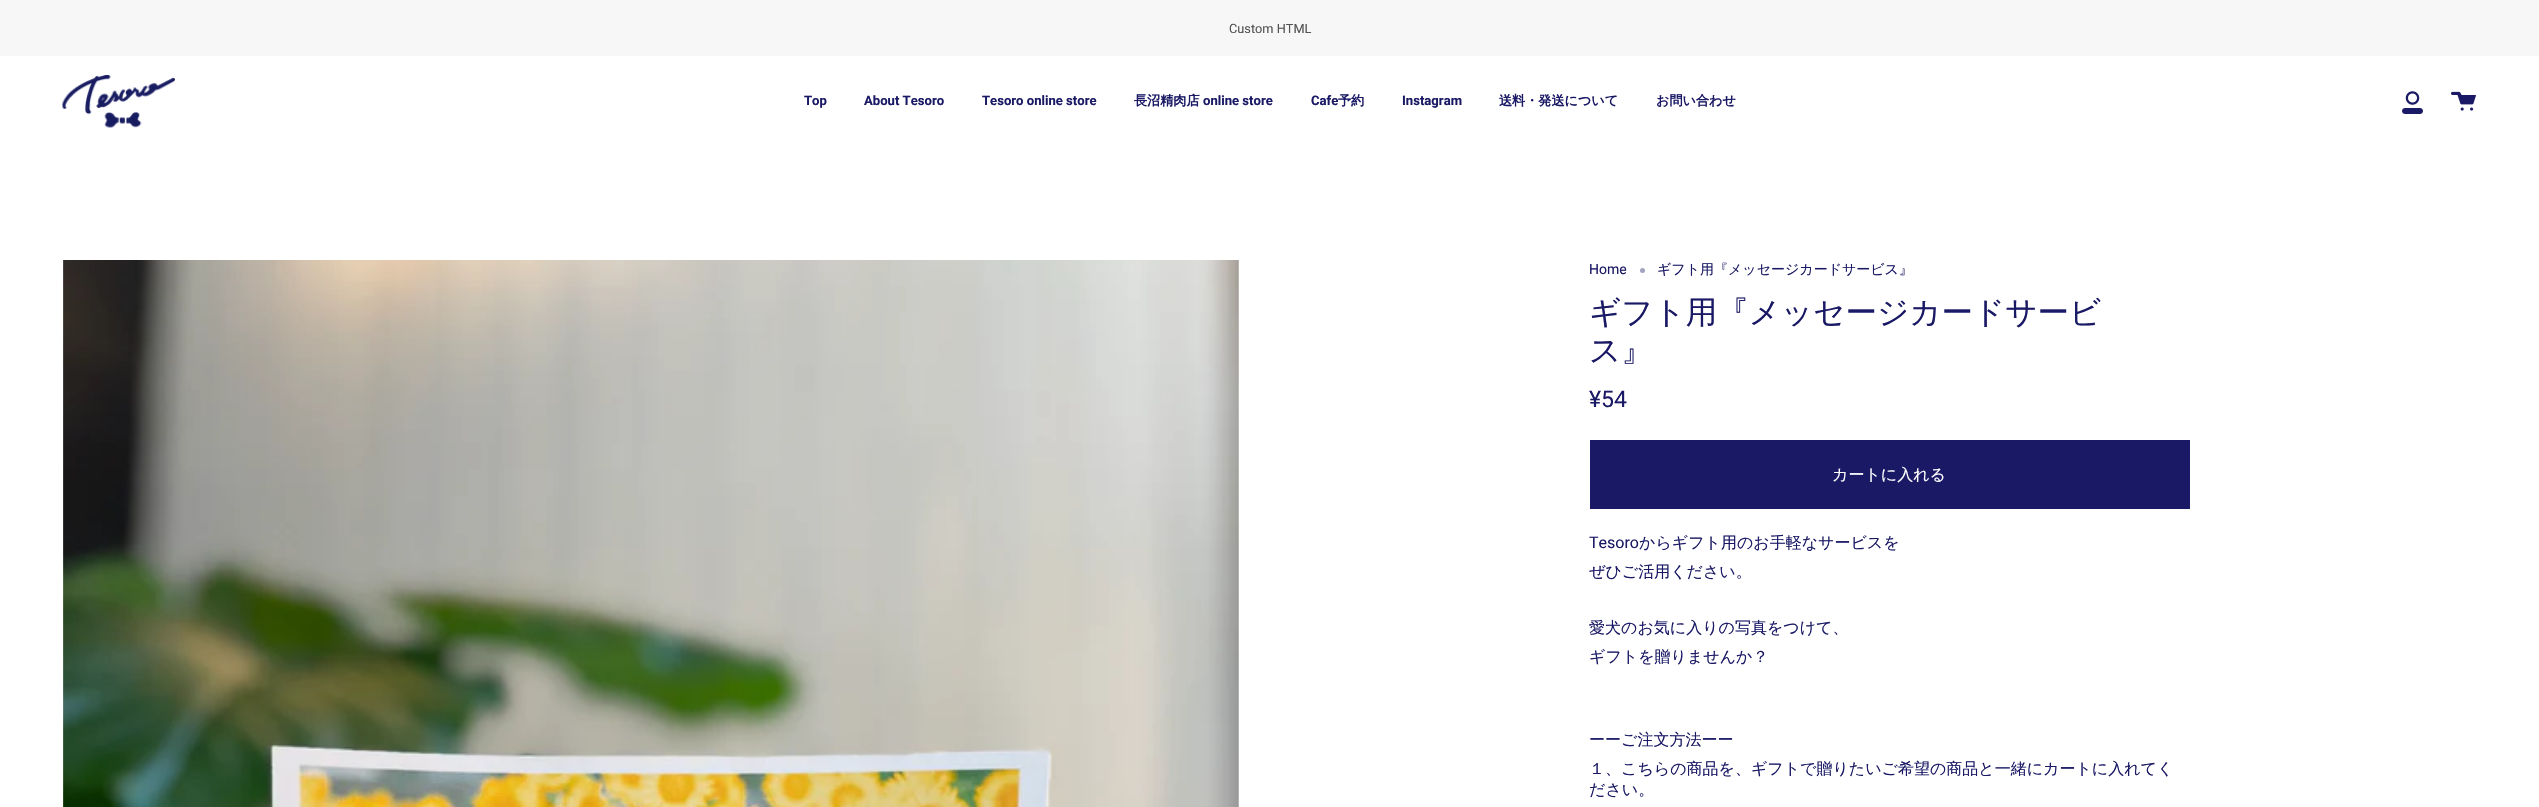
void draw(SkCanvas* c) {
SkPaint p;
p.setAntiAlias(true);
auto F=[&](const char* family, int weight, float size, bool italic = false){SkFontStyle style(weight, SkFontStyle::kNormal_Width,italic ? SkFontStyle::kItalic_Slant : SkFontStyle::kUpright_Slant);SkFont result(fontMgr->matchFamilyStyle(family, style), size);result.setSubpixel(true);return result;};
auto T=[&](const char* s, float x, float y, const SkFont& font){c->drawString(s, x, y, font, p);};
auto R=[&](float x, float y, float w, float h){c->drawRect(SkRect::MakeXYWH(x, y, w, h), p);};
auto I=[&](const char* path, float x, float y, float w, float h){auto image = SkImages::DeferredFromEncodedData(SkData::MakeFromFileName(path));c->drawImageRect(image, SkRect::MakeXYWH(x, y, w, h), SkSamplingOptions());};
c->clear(0xffffffff);
p.setColor(0xfff7f7f7);
R(0,0,2539,56);
auto f1 = F("Roboto",400,12.75);
p.setColor(0xff545454);
T("Custom HTML",1229,33,f1);
I("1.png",62,75,113,53);
auto f2 = F("Roboto",700,13.1);
p.setColor(0xff1a1965);
T("Top",804,105,f2);
T("About Tesoro",864,105,f2);
T("Tesoro online store",982,105,f2);
auto f3 = F("WenQuanYi Zen Hei",700,13.1);
T("長沼精肉店",1134,105,f3);
T("online store",1203,105,f2);
T("Cafe",1311,105,f2);
T("予約",1338,105,f3);
T("Instagram",1402,105,f2);
T("送料・発送について",1499,105,f3);
T("お問い合わせ",1656,105,f3);
I("2.png",2402,91,21,23);
I("3.png",2451,91,25,20);
I("4.png",63,260,1176,547);
auto f4 = F("Roboto",400,14);
T("Home",1589,274,f4);
p.setColor(0xffa3a3c1);
c->drawCircle(1642.5,270.5,2.5,p);
auto f5 = F("WenQuanYi Zen Hei",500,14);
p.setColor(0xff1a1965);
T("ギフト用『メッセージカードサービス』",1657,274,f5);
auto f6 = F("WenQuanYi Zen Hei",500,31.5);
T("ギフト用『メッセージカードサービ",1589,323,f6);
T("ス』",1589,361,f6);
auto f7 = F("Roboto",400,23);
T("¥54",1589,407,f7);
R(1590,440,600,69);
auto f8 = F("WenQuanYi Zen Hei",500,16);
p.setColor(0xffffffff);
T("カートに入れる",1832,480,f8);
auto f9 = F("Roboto",400,16);
p.setColor(0xff1a1965);
T("Tesoro",1589,548,f9);
T("からギフト用のお手軽なサービスを",1639,548,f8);
T("ぜひご活用ください。",1589,577,f8);
T("愛犬のお気に入りの写真をつけて、",1589,633,f8);
T("ギフトを贈りませんか？",1589,662,f8);
T("ーーご注文方法ーー",1589,745,f8);
T("１、こちらの商品を、ギフトで贈りたいご希望の商品と一緒にカートに入れてく",1589,774,f8);
T("ださい。",1589,795,f8);
}
